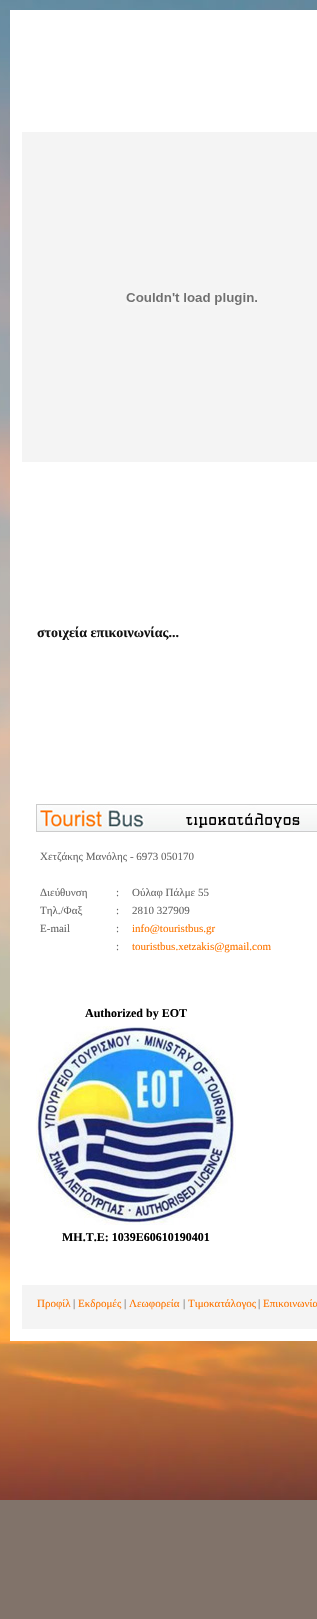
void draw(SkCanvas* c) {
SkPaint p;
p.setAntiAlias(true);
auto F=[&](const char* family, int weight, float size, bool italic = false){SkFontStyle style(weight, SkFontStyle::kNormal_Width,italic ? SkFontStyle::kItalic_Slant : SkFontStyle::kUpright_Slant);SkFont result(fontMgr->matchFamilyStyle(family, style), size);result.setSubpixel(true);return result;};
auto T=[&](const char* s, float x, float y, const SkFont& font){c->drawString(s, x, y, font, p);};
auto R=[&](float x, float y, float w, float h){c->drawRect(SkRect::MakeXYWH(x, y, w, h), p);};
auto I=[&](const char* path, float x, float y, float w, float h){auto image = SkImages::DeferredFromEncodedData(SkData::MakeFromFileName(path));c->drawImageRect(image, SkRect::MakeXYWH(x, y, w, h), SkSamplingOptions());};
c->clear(0xff81736a);
I("1.png",0,0,317,1500);
p.setStroke(true);
p.setStrokeWidth(12);
p.setColor(0xffffffff);
c->drawRect(SkRect::MakeXYWH(16,16,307,1319),p);
p.setStroke(false);
R(22,22,295,110);
p.setColor(0xfff4f4f4);
R(22,132,295,330);
I("2.png",126,293,131,12);
p.setColor(0xffffffff);
R(22,462,295,823);
auto f1 = F("Liberation Serif",700,14);
p.setColor(0xff131313);
T("στοιχεία επικοινωνίας...",37,637,f1);
p.setStroke(true);
p.setStrokeWidth(1);
p.setColor(0xffcccccc);
c->drawRect(SkRect::MakeXYWH(36.5,804.5,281,27),p);
I("3.png",37,805,280,26);
auto f2 = F("Liberation Serif",400,11);
p.setStroke(false);
p.setColor(0xff666666);
T("Χετζάκης Μανόλης - 6973 050170",40,860,f2);
T("Διεύθυνση",40,896,f2);
T(":",116,896,f2);
T("Ούλαφ Πάλμε 55",132,896,f2);
T("Τηλ./Φαξ",40,914,f2);
T(":",116,914,f2);
T("2810 327909",132,914,f2);
T("E-mail",40,932,f2);
T(":",116,932,f2);
p.setColor(0xfffe7500);
T("info@touristbus.gr",132,932,f2);
p.setColor(0xff666666);
T(":",116,950,f2);
p.setColor(0xfffe7500);
T("touristbus.xetzakis@gmail.com",132,950,f2);
auto f3 = F("Liberation Serif",700,12);
p.setColor(0xff000000);
T("Authorized by EOT",85,1017,f3);
I("4.png",36,1026,200,199);
T("ΜΗ.Τ.Ε: 1039Ε60610190401",62,1241,f3);
p.setColor(0xfff4f4f4);
R(22,1285,295,44);
p.setColor(0xfffe7500);
T("Προφίλ",37,1307,f2);
p.setColor(0xff666666);
T("|",73,1307,f2);
p.setColor(0xfffe7500);
T("Εκδρομές",78,1307,f2);
p.setColor(0xff666666);
T("|",124,1307,f2);
p.setColor(0xfffe7500);
T("Λεωφορεία",129,1307,f2);
p.setColor(0xff666666);
T("|",183,1307,f2);
p.setColor(0xfffe7500);
T("Τιμοκατάλογος",188,1307,f2);
p.setColor(0xff666666);
T("|",258,1307,f2);
p.setColor(0xfffe7500);
T("Επικοινωνία",263,1307,f2);
}
